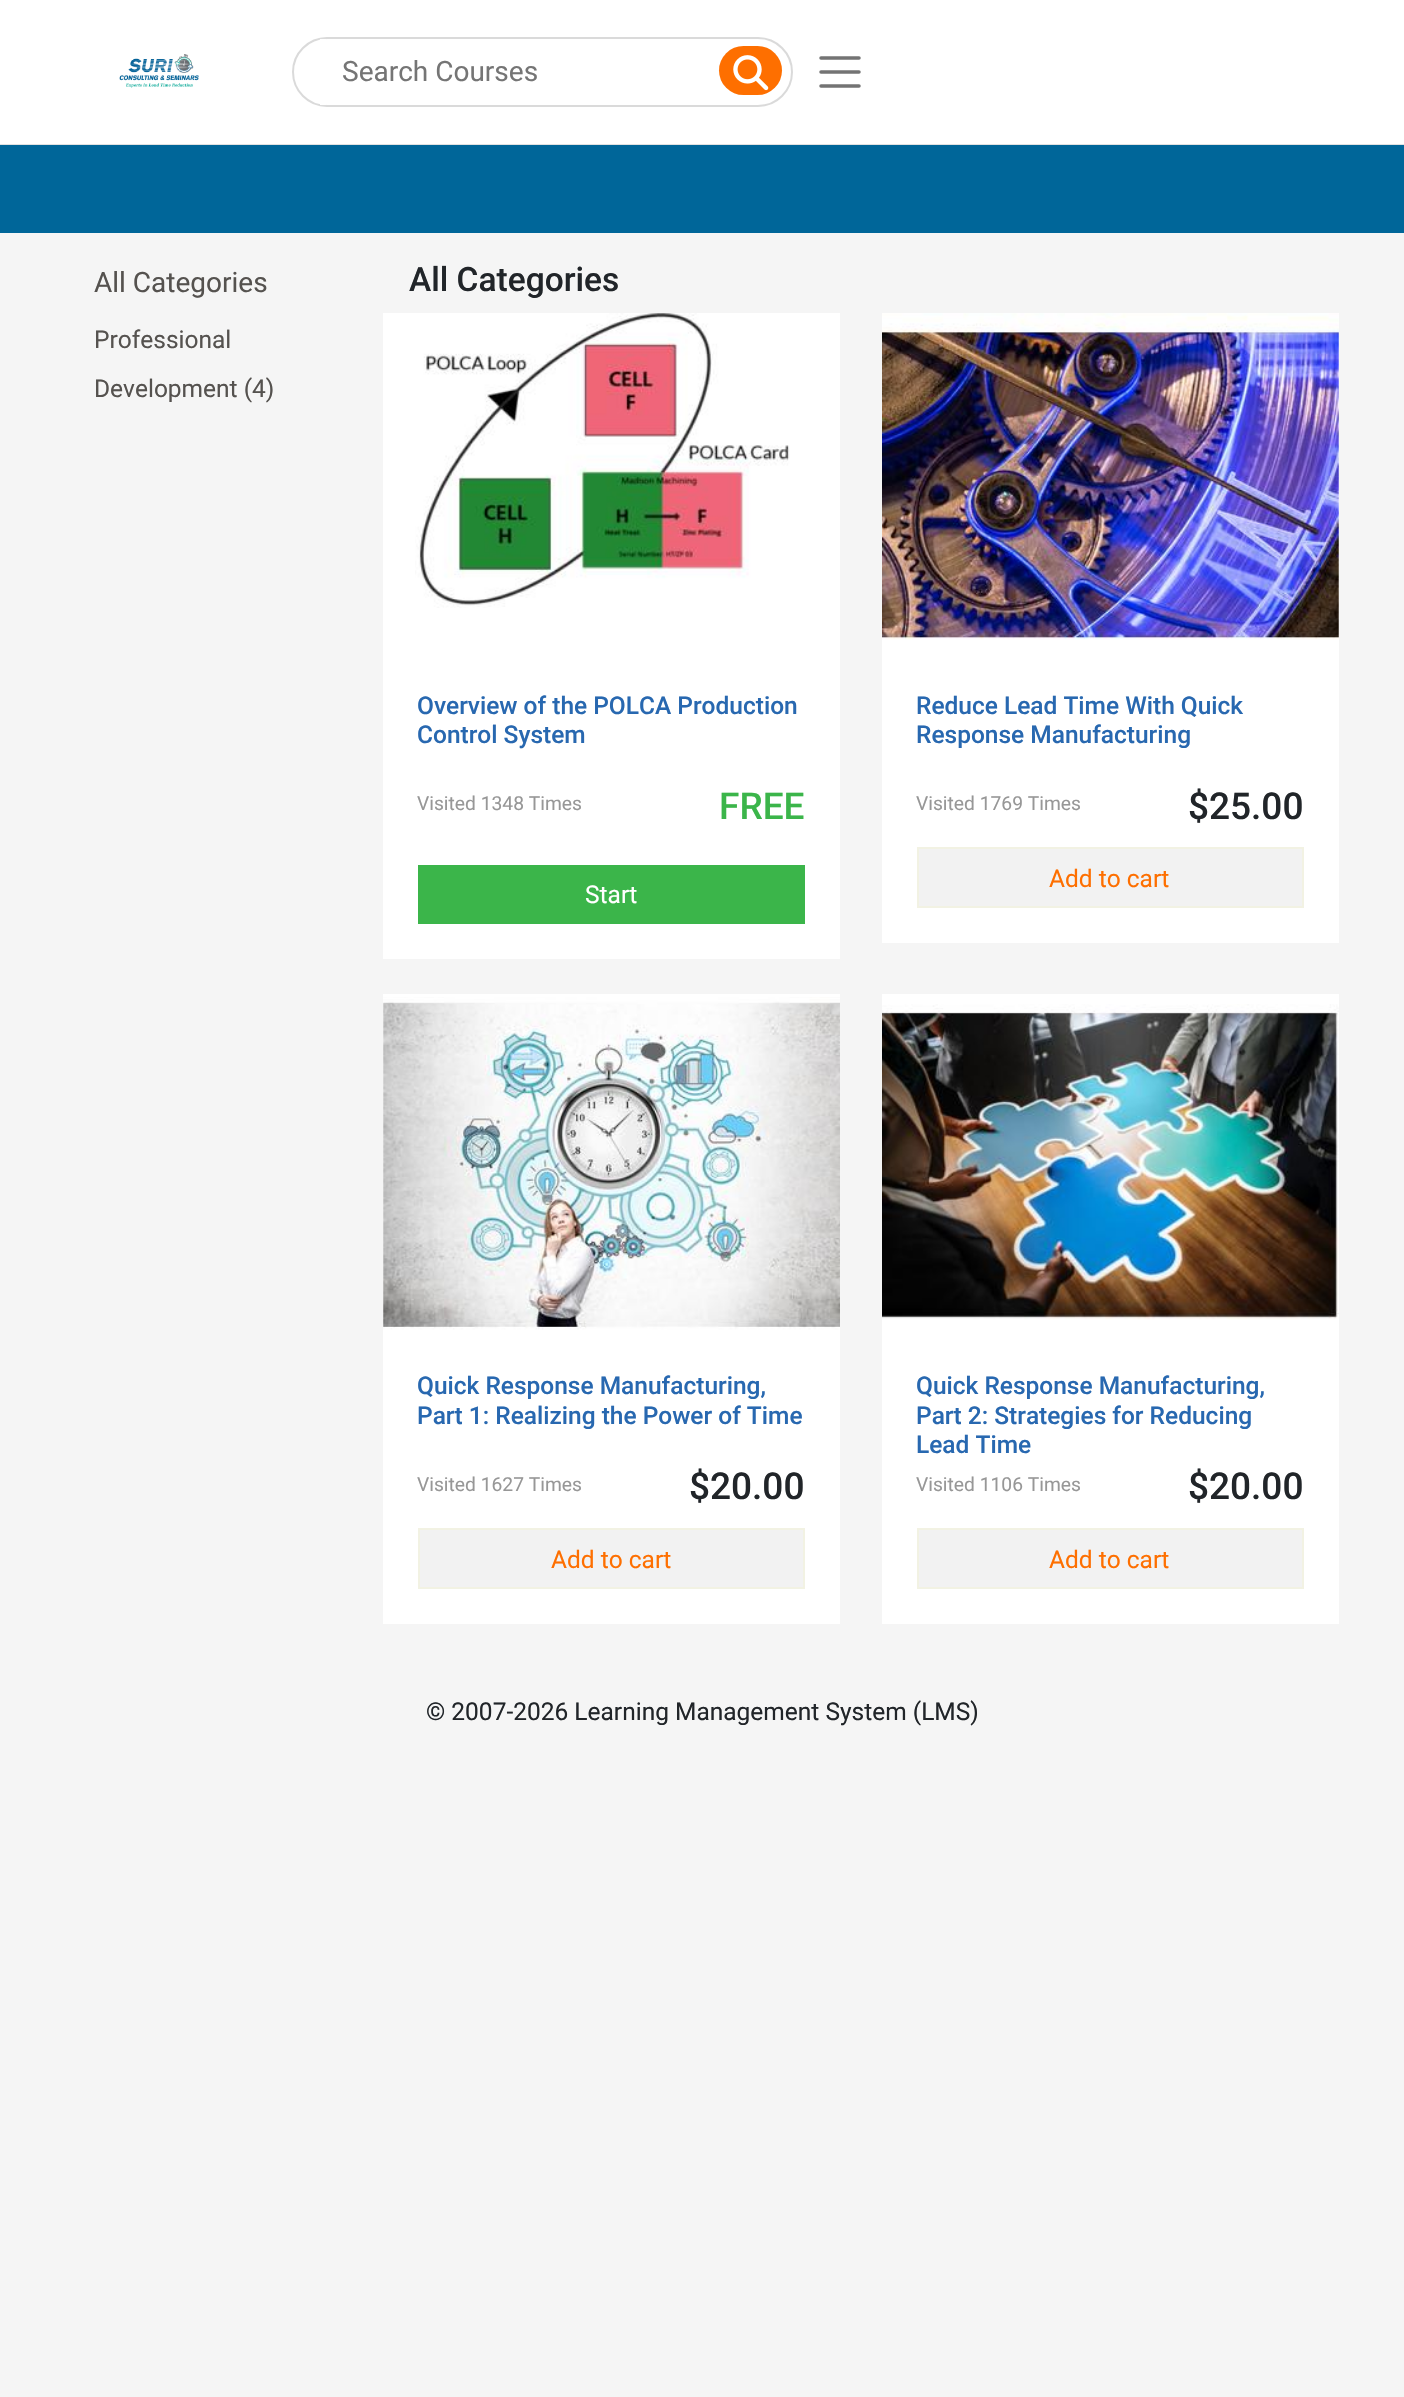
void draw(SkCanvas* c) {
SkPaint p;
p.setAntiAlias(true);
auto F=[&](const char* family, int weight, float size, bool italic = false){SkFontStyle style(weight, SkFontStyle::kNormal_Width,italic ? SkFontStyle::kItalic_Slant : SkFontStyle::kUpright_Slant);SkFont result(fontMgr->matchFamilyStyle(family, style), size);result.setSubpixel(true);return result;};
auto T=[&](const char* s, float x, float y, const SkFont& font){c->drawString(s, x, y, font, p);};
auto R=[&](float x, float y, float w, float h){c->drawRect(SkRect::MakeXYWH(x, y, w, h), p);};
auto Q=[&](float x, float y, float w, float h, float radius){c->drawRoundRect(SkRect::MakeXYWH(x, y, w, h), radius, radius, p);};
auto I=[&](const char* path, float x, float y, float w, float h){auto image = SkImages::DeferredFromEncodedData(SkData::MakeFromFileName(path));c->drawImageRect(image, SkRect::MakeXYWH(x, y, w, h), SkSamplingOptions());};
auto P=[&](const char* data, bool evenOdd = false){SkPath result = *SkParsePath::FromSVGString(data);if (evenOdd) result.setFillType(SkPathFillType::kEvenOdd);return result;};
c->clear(0xfff5f5f5);
p.setColor(0xffffffff);
R(0,0,1404,144);
p.setColor(0xffe1e1e1);
R(0,144,1404,1);
I("1.png",119,54,80,34);
p.setStroke(true);
p.setStrokeWidth(2);
p.setColor(0xffdadada);
c->drawRoundRect(SkRect::MakeXYWH(293,38,499,68),34,34,p);
p.setStroke(false);
p.setColor(0xffffffff);
R(320,39,6,66);
auto f1 = F("Roboto",400,28);
p.setColor(0xff757575);
T("Search Courses",342,81,f1);
p.setColor(0xfffe6f00);
Q(719,46,63,49,24.5);
I("2.png",733,55,36,36);
p.setStroke(true);
p.setStrokeWidth(3.5);
p.setStrokeCap(SkPaint::kRound_Cap);
p.setColor(0xff737373);
c->drawPath(P("M821 58h38m-38 14h38m-38 14h38"),p);
p.setStroke(false);
p.setColor(0xff006699);
R(0,145,1404,88);
p.setColor(0xff55524f);
T("All Categories",94,292,f1);
auto f2 = F("Roboto",400,24.5);
T("Professional",94,348,f2);
T("Development (4)",94,397,f2);
auto f3 = F("Roboto",500,33.5);
p.setColor(0xff212529);
T("All Categories",409,291,f3);
p.setColor(0xffffffff);
R(383,313,457,646);
I("3.png",415,313,375,295);
auto f4 = F("Roboto",500,24.5);
p.setColor(0xff2868b0);
T("Overview of the POLCA Production",417,714,f4);
T("Control System",417,743,f4);
auto f5 = F("Roboto",400,19.25);
p.setColor(0xff979797);
T("Visited 1348 Times",417,810,f5);
auto f6 = F("Roboto",500,37);
p.setColor(0xff3bb54a);
T("FREE",719,819,f6);
R(418,865,387,59);
p.setColor(0xffffffff);
T("Start",585,903,f2);
R(882,313,457,630);
I("4.png",882,313,457,327);
p.setColor(0xff2868b0);
T("Reduce Lead Time With Quick",916,714,f4);
T("Response Manufacturing",916,743,f4);
p.setColor(0xff979797);
T("Visited 1769 Times",916,810,f5);
p.setColor(0xff212529);
T("$25.00",1188,819,f6);
p.setColor(0xfff2f2f2);
c->drawRect(SkRect::MakeXYWH(918,848,385,59),p);
p.setStroke(true);
p.setStrokeWidth(2);
p.setStrokeCap(SkPaint::kButt_Cap);
p.setColor(0xfff2f2e3);
c->drawRect(SkRect::MakeXYWH(918,848,385,59),p);
p.setStroke(false);
p.setColor(0xfffe6f00);
T("Add to cart",1049,887,f2);
p.setColor(0xffffffff);
R(383,994,457,630);
I("5.png",383,997,457,333);
p.setColor(0xff2868b0);
T("Quick Response Manufacturing,",417,1394,f4);
T("Part 1: Realizing the Power of Time",417,1424,f4);
p.setColor(0xff979797);
T("Visited 1627 Times",417,1491,f5);
p.setColor(0xff212529);
T("$20.00",689,1499,f6);
p.setColor(0xfff2f2f2);
c->drawRect(SkRect::MakeXYWH(419,1529,385,59),p);
p.setStroke(true);
p.setColor(0xfff2f2e3);
c->drawRect(SkRect::MakeXYWH(419,1529,385,59),p);
p.setStroke(false);
p.setColor(0xfffe6f00);
T("Add to cart",551,1568,f2);
p.setColor(0xffffffff);
R(882,994,457,630);
I("6.png",882,1004,457,316);
p.setColor(0xff2868b0);
T("Quick Response Manufacturing,",916,1394,f4);
T("Part 2: Strategies for Reducing",916,1424,f4);
T("Lead Time",916,1453,f4);
p.setColor(0xff979797);
T("Visited 1106 Times",916,1491,f5);
p.setColor(0xff212529);
T("$20.00",1188,1499,f6);
p.setColor(0xfff2f2f2);
c->drawRect(SkRect::MakeXYWH(918,1529,385,59),p);
p.setStroke(true);
p.setColor(0xfff2f2e3);
c->drawRect(SkRect::MakeXYWH(918,1529,385,59),p);
p.setStroke(false);
p.setColor(0xfffe6f00);
T("Add to cart",1049,1568,f2);
p.setColor(0xff212529);
T("© 2007-2026 Learning Management System (LMS)",426,1720,f2);
}
